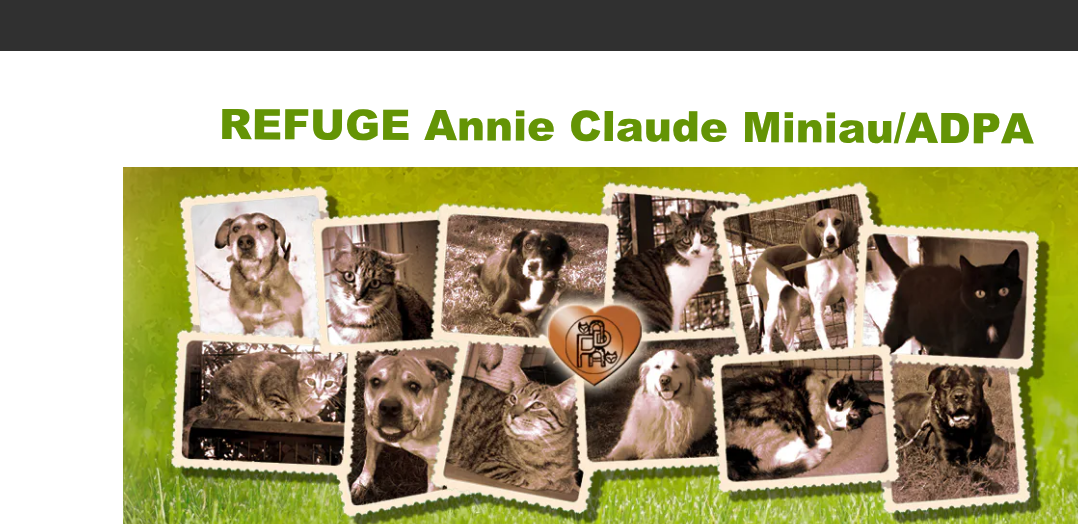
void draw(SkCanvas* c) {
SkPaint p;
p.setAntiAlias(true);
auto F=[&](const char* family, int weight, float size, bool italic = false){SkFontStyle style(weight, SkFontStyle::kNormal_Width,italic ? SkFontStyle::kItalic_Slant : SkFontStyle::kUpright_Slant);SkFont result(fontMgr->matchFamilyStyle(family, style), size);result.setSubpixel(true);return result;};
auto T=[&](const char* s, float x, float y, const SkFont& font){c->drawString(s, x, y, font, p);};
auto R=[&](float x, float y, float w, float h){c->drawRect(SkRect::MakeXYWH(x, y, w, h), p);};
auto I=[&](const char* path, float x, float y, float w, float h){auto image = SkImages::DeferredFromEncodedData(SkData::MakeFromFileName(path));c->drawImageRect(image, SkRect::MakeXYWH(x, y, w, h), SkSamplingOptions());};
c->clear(0xffffffff);
p.setColor(0xff303030);
R(0,0,1078,51);
auto f1 = F("Arial",900,42);
p.setColor(0xff649405);
c->save();
c->rotate(.3,219,139);
T("REFUGE Annie Claude",219,139,f1);
c->restore();
c->save();
c->rotate(.3,742,142);
T("Miniau/ADPA",742,142,f1);
c->restore();
I("1.png",123,167,955,357);
}
